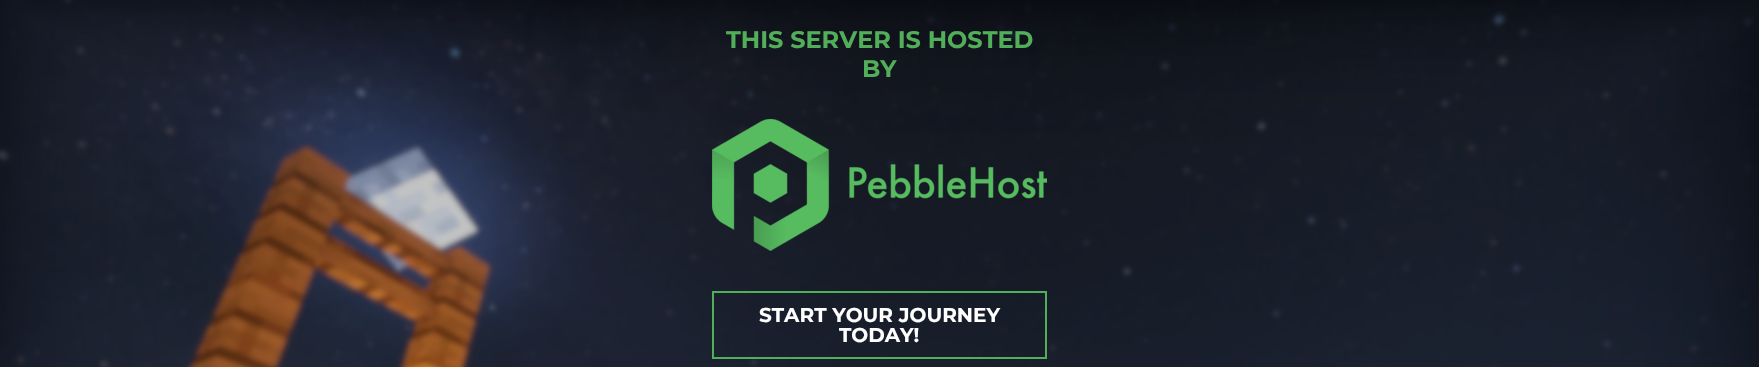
void draw(SkCanvas* c) {
SkPaint p;
p.setAntiAlias(true);
auto F=[&](const char* family, int weight, float size, bool italic = false){SkFontStyle style(weight, SkFontStyle::kNormal_Width,italic ? SkFontStyle::kItalic_Slant : SkFontStyle::kUpright_Slant);SkFont result(fontMgr->matchFamilyStyle(family, style), size);result.setSubpixel(true);return result;};
auto T=[&](const char* s, float x, float y, const SkFont& font){c->drawString(s, x, y, font, p);};
auto I=[&](const char* path, float x, float y, float w, float h){auto image = SkImages::DeferredFromEncodedData(SkData::MakeFromFileName(path));c->drawImageRect(image, SkRect::MakeXYWH(x, y, w, h), SkSamplingOptions());};
c->clear(0xffffffff);
I("1.png",0,0,1759,367);
auto f1 = F("Montserrat",100,24);
p.setColor(0xff51ae59);
T("THIS SERVER IS HOSTED",726,48,f1);
T("BY",862,77,f1);
I("2.png",712,119,335,132);
p.setStroke(true);
p.setStrokeWidth(2);
c->drawRect(SkRect::MakeXYWH(713,292,333,66),p);
auto f2 = F("Montserrat",100,20);
p.setStroke(false);
p.setColor(0xffffffff);
T("START YOUR JOURNEY",759,322,f2);
T("TODAY!",839,342,f2);
}
